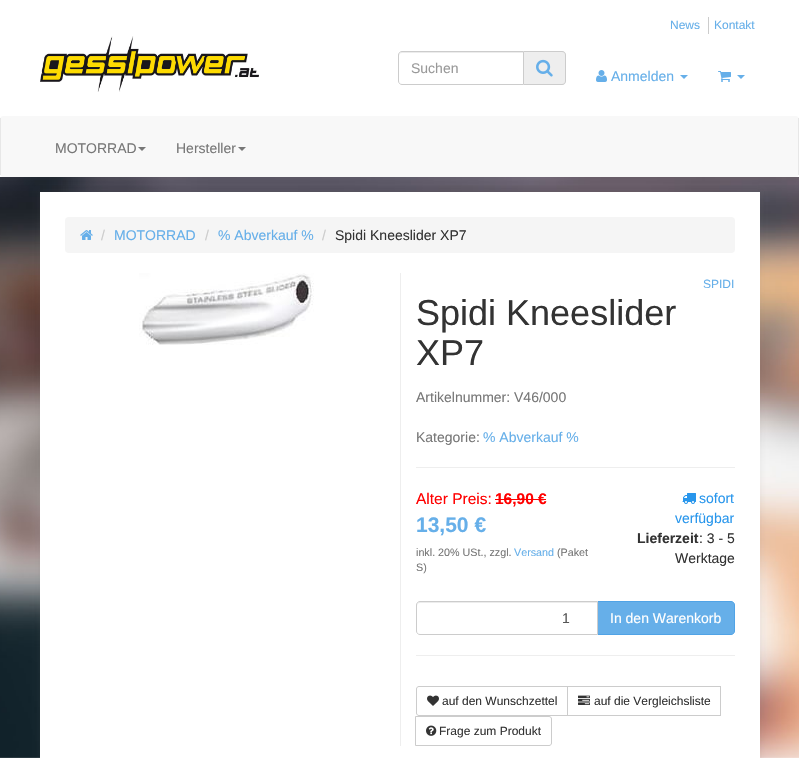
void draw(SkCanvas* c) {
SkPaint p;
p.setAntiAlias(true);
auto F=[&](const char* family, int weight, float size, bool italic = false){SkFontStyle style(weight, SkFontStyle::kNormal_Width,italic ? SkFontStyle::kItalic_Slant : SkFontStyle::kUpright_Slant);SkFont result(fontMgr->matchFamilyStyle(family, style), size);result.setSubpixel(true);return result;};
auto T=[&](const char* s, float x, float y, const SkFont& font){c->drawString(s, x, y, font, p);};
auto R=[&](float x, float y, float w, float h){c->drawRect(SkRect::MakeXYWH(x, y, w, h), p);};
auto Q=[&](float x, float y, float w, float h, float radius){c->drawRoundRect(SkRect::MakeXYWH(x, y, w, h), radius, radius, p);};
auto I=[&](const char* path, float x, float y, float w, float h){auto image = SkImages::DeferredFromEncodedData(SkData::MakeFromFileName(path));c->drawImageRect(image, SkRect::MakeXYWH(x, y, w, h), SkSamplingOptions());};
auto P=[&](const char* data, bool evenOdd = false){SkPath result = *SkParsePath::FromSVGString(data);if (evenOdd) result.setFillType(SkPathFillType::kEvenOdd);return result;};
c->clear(0xffffffff);
I("11.png",0,177,799,581);
p.setColor(0x1a6a6a6a);
p.setMaskFilter(SkMaskFilter::MakeBlur(kNormal_SkBlurStyle, 2.5));
c->drawRect(SkRect::MakeXYWH(-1,-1,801,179),p);
p.setMaskFilter(nullptr);
p.setColor(0xffffffff);
R(0,0,799,177);
auto f1 = F("Liberation Sans",400,12);
p.setColor(0xff66afe9);
T("News",670,29,f1);
p.setColor(0xffcccccc);
R(708,17,1,17);
p.setColor(0xff66afe9);
T("Kontakt",714,29,f1);
I("1.png",40,36,219,56);
p.setColor(0xffececec);
c->drawPath(P("M402 53h121v-1h-121c-2 0-3 1-3 3v1c0-2 1-3 3-3z"),p);
p.setStroke(true);
p.setStrokeWidth(1);
p.setColor(0xffcccccc);
c->drawPath(P("M402 51.5h121.5v33h-121.5c-2 0-3.5-1.5-3.5-3.5v-26c0-2 1.5-3.5 3.5-3.5z"),p);
auto f2 = F("Liberation Sans",400,14);
p.setStroke(false);
p.setColor(0xff999999);
T("Suchen",411,73,f2);
p.setColor(0xffeeeeee);
c->drawPath(P("M524 51h38c2 0 4 2 4 4v26c0 2-2 4-4 4h-38z"),p);
p.setColor(0xffcccccc);
c->drawPath(P("M524 51h38c2 0 4 2 4 4v26c0 2-2 4-4 4h-38zm0 1h38c2 0 3 1 3 3v26c0 2-1 3-3 3h-38z",true),p);
I("2.png",536,59,17,18);
I("3.png",596,70,11,12);
p.setColor(0xff66afe9);
T("Anmelden",611,81,f2);
c->drawPath(P("M680 75h8l-4 4z"),p);
I("4.png",718,71,13,11);
c->drawPath(P("M737 75h8l-4 4z"),p);
p.setColor(0xfff8f8f8);
Q(0,116,799,61,4);
p.setColor(0xffe7e7e7);
R(798,118,1,57);
R(0,118,1,57);
p.setColor(0xff777777);
T("MOTORRAD",55,153,f2);
c->drawPath(P("M138 147h8l-4 4z"),p);
T("Hersteller",176,153,f2);
c->drawPath(P("M238 147h8l-4 4z"),p);
p.setColor(0x1a6a6a6a);
p.setMaskFilter(SkMaskFilter::MakeBlur(kNormal_SkBlurStyle, 2.5));
c->drawRect(SkRect::MakeXYWH(39,191,722,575),p);
p.setMaskFilter(nullptr);
p.setColor(0xffffffff);
R(40,192,720,566);
p.setColor(0xfff5f5f5);
Q(65,217,670,36,4);
I("5.png",80,230,13,10);
p.setColor(0xffcccccc);
T("/",101,240,f2);
p.setColor(0xff66afe9);
T("MOTORRAD",114,240,f2);
p.setColor(0xffcccccc);
T("/",205,240,f2);
p.setColor(0xff66afe9);
T("% Abverkauf %",218,240,f2);
p.setColor(0xffcccccc);
T("/",322,240,f2);
p.setColor(0xff333333);
T("Spidi Kneeslider XP7",335,240,f2);
I("6.png",139,273,175,72);
p.setColor(0xffeeeeee);
R(400,273,1,473);
p.setColor(0xff66afe9);
T("SPIDI",703,288,f1);
auto f3 = F("Liberation Sans",400,36);
p.setColor(0xff333333);
T("Spidi Kneeslider",416,325,f3);
T("XP7",416,365,f3);
p.setColor(0xff777777);
T("Artikelnummer: V46/000",416,402,f2);
T("Kategorie:",416,442,f2);
p.setColor(0xff66afe9);
T("% Abverkauf %",483,442,f2);
p.setColor(0xffeeeeee);
R(416,467,319,1);
auto f4 = F("Liberation Sans",400,15.5);
p.setColor(0xffff0000);
T("Alter Preis:",416,504,f4);
auto f5 = F("Liberation Sans",700,15.5);
T("16,90 €",495,504,f5);
R(495,499,51,1);
auto f6 = F("Liberation Sans",700,21);
p.setColor(0xff66afe9);
T("13,50 €",416,532,f6);
auto f7 = F("Liberation Sans",400,10.75);
p.setColor(0xff777777);
T("inkl. 20% USt., zzgl.",416,556,f7);
p.setColor(0xff66afe9);
T("Versand",514,556,f7);
p.setColor(0xff777777);
T("(Paket",557,556,f7);
T("S)",416,571,f7);
I("7.png",682,493,14,11);
p.setColor(0xff2896ec);
T("sofort",699,503,f2);
T("verfügbar",675,523,f2);
auto f8 = F("Liberation Sans",700,14);
p.setColor(0xff333333);
T("Lieferzeit",637,543,f8);
T(": 3 - 5",699,543,f2);
T("Werktage",675,563,f2);
p.setColor(0xff66afe9);
c->drawPath(P("M597.5 601.5h133.5c2 0 3.5 1.5 3.5 3.5v26c0 2-1.5 3.5-3.5 3.5h-133.5z"),p);
p.setStroke(true);
p.setColor(0xff50a3e6);
c->drawPath(P("M597.5 601.5h133.5c2 0 3.5 1.5 3.5 3.5v26c0 2-1.5 3.5-3.5 3.5h-133.5z"),p);
p.setStroke(false);
p.setColor(0xffffffff);
c->drawPath(P("M420 601h178v34h-178c-2 0-4-2-4-4v-26c0-2 2-4 4-4z"),p);
p.setColor(0xffececec);
c->drawPath(P("M420 603h177v-1h-178c-2 1-2 2-2 4c0-2 1-3 3-3z"),p);
p.setStroke(true);
p.setColor(0xffcccccc);
c->drawPath(P("M420 601.5h177.5v33h-177.5c-2 0-3.5-1.5-3.5-3.5v-26c0-2 1.5-3.5 3.5-3.5z"),p);
p.setStroke(false);
p.setColor(0xff555555);
T("1",562,623,f2);
p.setColor(0xffffffff);
T("In den Warenkorb",610,623,f2);
p.setColor(0xffeeeeee);
R(416,655,319,1);
p.setStroke(true);
p.setColor(0xffcccccc);
c->drawPath(P("M419 686.5h148.5v29h-148.5c-1.5 0-2.5-1-2.5-2.5v-24c0-1.5 1-2.5 2.5-2.5z"),p);
I("8.png",427,695,12,11);
p.setStroke(false);
p.setColor(0xff333333);
T("auf den Wunschzettel",442,705,f1);
p.setStroke(true);
p.setColor(0xffcccccc);
c->drawRect(SkRect::MakeXYWH(567.5,686.5,153,29),p);
I("9.png",578,695,12,10);
p.setStroke(false);
p.setColor(0xff333333);
T("auf die Vergleichsliste",594,705,f1);
p.setStroke(true);
p.setColor(0xffcccccc);
c->drawPath(P("M415.5 716.5h133.5c1.5 0 2.5 1 2.5 2.5v24c0 1.5-1 2.5-2.5 2.5h-133.5z"),p);
I("10.png",426,725,11,11);
p.setStroke(false);
p.setColor(0xff333333);
T("Frage zum Produkt",439,735,f1);
}
